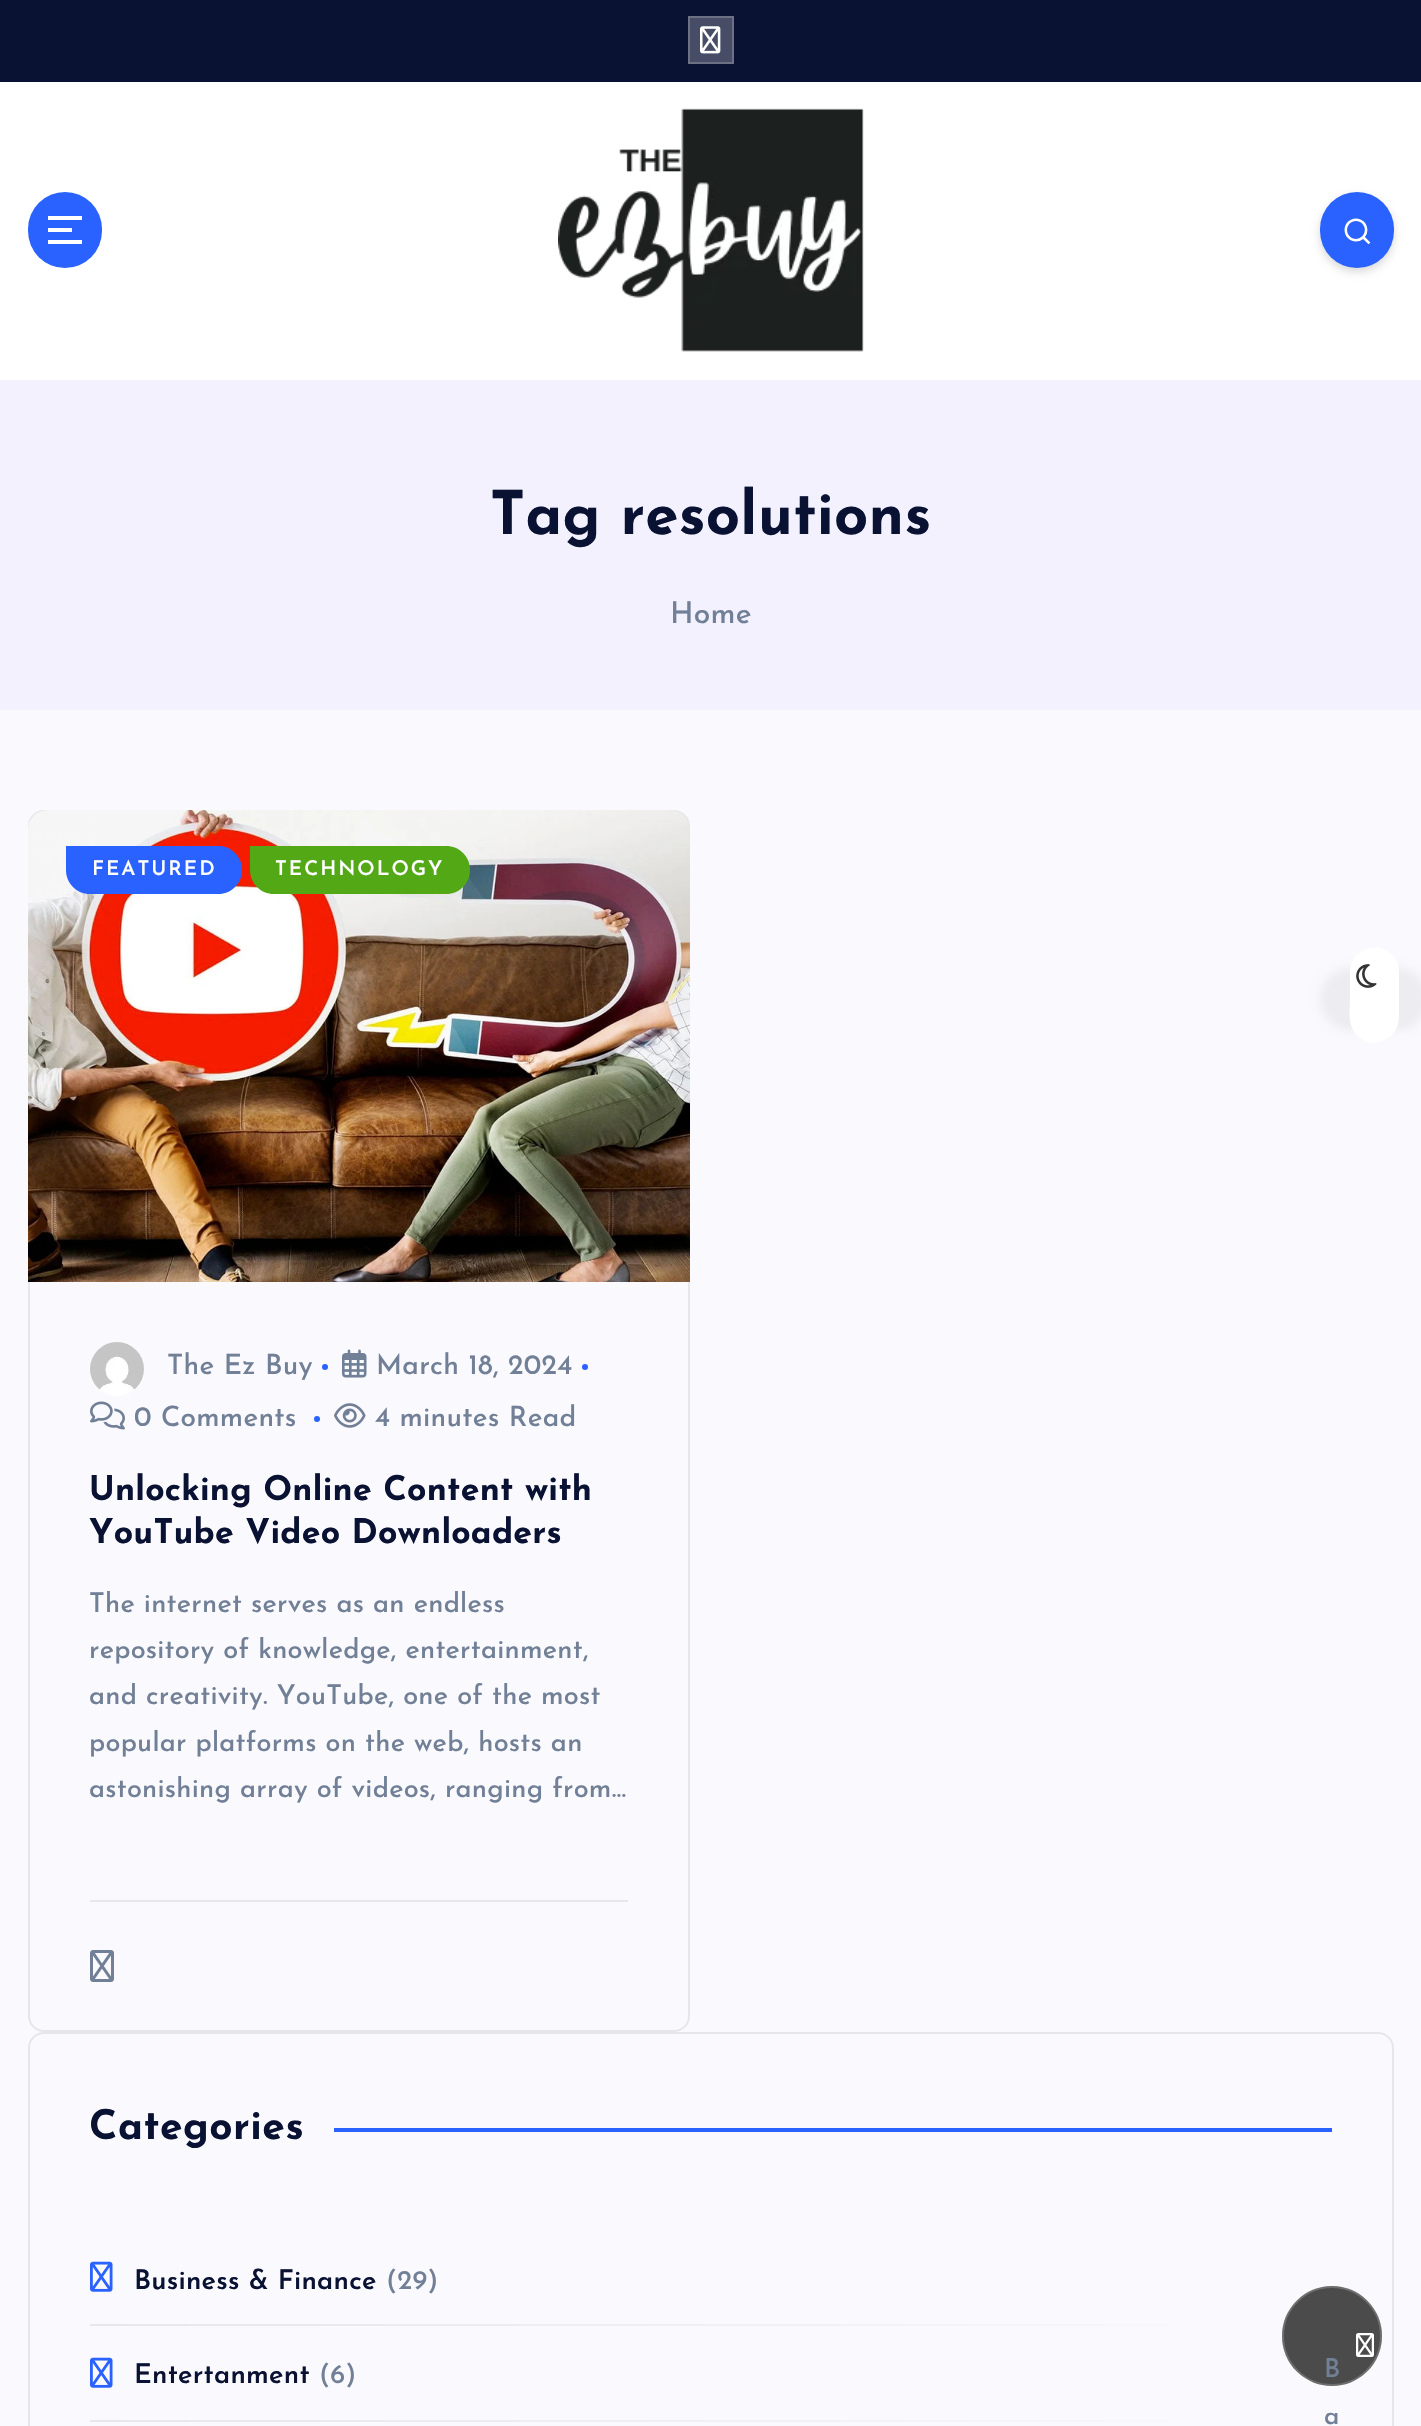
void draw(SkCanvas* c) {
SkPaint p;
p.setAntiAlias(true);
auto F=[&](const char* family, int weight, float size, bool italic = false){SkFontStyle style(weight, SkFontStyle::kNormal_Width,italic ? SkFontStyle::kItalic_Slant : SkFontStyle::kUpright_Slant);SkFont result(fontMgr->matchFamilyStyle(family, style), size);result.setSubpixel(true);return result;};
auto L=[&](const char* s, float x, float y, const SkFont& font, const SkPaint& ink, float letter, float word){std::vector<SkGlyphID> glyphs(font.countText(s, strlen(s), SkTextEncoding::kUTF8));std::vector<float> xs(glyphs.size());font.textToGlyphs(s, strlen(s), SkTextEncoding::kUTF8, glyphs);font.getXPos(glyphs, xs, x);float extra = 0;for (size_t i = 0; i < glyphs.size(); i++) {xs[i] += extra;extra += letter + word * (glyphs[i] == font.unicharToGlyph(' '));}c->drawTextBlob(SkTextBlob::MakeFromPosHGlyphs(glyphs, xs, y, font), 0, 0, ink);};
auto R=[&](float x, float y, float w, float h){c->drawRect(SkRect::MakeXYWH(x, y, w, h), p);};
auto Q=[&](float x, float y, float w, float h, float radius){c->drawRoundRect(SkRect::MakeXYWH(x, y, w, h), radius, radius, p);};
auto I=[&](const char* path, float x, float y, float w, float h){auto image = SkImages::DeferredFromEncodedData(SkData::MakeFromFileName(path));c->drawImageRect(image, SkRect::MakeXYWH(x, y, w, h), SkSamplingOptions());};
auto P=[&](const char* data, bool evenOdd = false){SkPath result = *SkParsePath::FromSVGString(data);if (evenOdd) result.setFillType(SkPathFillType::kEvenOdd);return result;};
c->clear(0xfff9f9fe);
p.setColor(0xffffffff);
R(0,82,1421,298);
p.setColor(0xff0a1233);
R(0,0,1421,82);
p.setColor(0xff474d66);
c->drawRect(SkRect::MakeXYWH(689,17,44,46),p);
p.setStroke(true);
p.setStrokeWidth(2);
p.setColor(0xff6c7185);
c->drawRect(SkRect::MakeXYWH(689,17,44,46),p);
I("1.png",700,26,21,28);
p.setStroke(false);
p.setColor(0xff2962ff);
Q(28,192,74,76,37);
p.setColor(0xffffffff);
R(48,216,34,4);
R(48,228,24,4);
R(48,240,34,4);
I("2.png",558,108,306,244);
p.setColor(0x26000000);
p.setMaskFilter(SkMaskFilter::MakeBlur(kNormal_SkBlurStyle, 4));
c->drawRoundRect(SkRect::MakeXYWH(1320,196,74,76),37,37,p);
p.setMaskFilter(nullptr);
p.setColor(0xff2962ff);
Q(1320,192,74,76,37);
I("3.png",1344,218,27,27);
p.setColor(0xfff2f1fd);
R(0,380,1421,330);
auto f1 = F("Josefin Sans",700,60);
p.setColor(0xff0a1233);
L("Tag resolutions",490,534,f1,p,.25,0);
auto f2 = F("Josefin Sans",500,30);
p.setColor(0xff718096);
L("Home",670,623,f2,p,.25,0);
p.setStroke(true);
p.setColor(0xffe7e7eb);
c->drawRoundRect(SkRect::MakeXYWH(29,811,660,1220),15,15,p);
I("4.png",28,810,662,472);
p.setStroke(false);
p.setColor(0xff2962ff);
c->drawPath(P("M66 846h152c13.5 0 24 10.5 24 24c0 13.5-10.5 24-24 24h-128c-13.5 0-24-10.5-24-24z"),p);
auto f3 = F("Josefin Sans",600,20.25);
p.setColor(0xffffffff);
L("FEATURED",92,875,f3,p,2,0);
p.setColor(0xff52a815);
c->drawPath(P("M250 846h196c13.5 0 24 10.5 24 24c0 13.5-10.5 24-24 24h-172c-13.5 0-24-10.5-24-24z"),p);
p.setColor(0xffffffff);
L("TECHNOLOGY",275,875,f3,p,2,0);
I("5.png",90,1342,54,54);
auto f4 = F("Josefin Sans",500,28);
p.setColor(0xff718096);
L("The Ez Buy",167,1374,f4,p,.25,0);
p.setColor(0xff2962ff);
c->drawCircle(325,1367,3,p);
I("6.png",342,1349,25,29);
p.setColor(0xff718096);
L("March 18, 2024",376,1374,f4,p,.25,0);
p.setColor(0xff2962ff);
c->drawCircle(585,1367,3,p);
I("7.png",90,1401,35,29);
p.setColor(0xff718096);
L("0 Comments",134,1426,f4,p,.25,0);
p.setColor(0xff2962ff);
c->drawCircle(317,1419,3,p);
I("8.png",334,1403,32,25);
p.setColor(0xff718096);
L("4 minutes Read",375,1426,f4,p,.25,0);
auto f5 = F("Josefin Sans",700,33.9);
p.setColor(0xff0a1233);
L("Unlocking Online Content with",89,1500,f5,p,.25,0);
L("YouTube Video Downloaders",89,1543,f5,p,.25,0);
auto f6 = F("Josefin Sans",500,27.1);
p.setColor(0xff718096);
L("The internet serves as an endless",89,1612,f6,p,.25,0);
L("repository of knowledge, entertainment,",89,1658,f6,p,.25,0);
L("and creativity. YouTube, one of the most",89,1704,f6,p,.25,0);
L("popular platforms on the web, hosts an",89,1751,f6,p,.25,0);
L("astonishing array of videos, ranging from…",89,1797,f6,p,.25,0);
p.setColor(0xffe7e7eb);
R(90,1900,538,2);
I("9.png",90,1950,24,32);
p.setStroke(true);
c->drawRoundRect(SkRect::MakeXYWH(29,2033,1364,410),15,15,p);
auto f7 = F("Josefin Sans",700,40.75);
p.setStroke(false);
p.setColor(0xff0a1233);
L("Categories",89,2139,f7,p,.5,0);
p.setColor(0xff2962ff);
R(334,2128,998,4);
I("10.png",90,2261,23,31);
auto f8 = F("Josefin Sans",600,27.1);
p.setColor(0xff0a1233);
L("Business & Finance",134,2289,f8,p,.25,0);
p.setColor(0xff718096);
L("(29)",386,2289,f6,p,.25,0);
{
const SkColor colors[] = {0xffe7e7eb,0xfff9f9fe};
const float stops[] = {0,1};
const SkPoint ends[] = {{90,2325}, {1332,2325}};
p.setShader(SkGradientShader::MakeLinear(ends, colors, stops, 2, SkTileMode::kClamp));
p.setAlpha(255);
}
R(90,2324,1079,2);
I("10.png",90,2357,23,31);
p.setShader(nullptr);
p.setColor(0xff0a1233);
L("Entertanment",134,2383,f8,p,.25,0);
p.setColor(0xff718096);
L("(6)",319,2383,f6,p,.25,0);
{
const SkColor colors[] = {0xffe7e7eb,0xfff9f9fe};
const float stops[] = {0,1};
const SkPoint ends[] = {{90,2421}, {1332,2421}};
p.setShader(SkGradientShader::MakeLinear(ends, colors, stops, 2, SkTileMode::kClamp));
p.setAlpha(255);
}
R(90,2420,1079,2);
p.setShader(nullptr);
p.setColor(0x0d000000);
p.setMaskFilter(SkMaskFilter::MakeBlur(kNormal_SkBlurStyle, 5));
c->drawRoundRect(SkRect::MakeXYWH(1320,968,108,62),31,31,p);
p.setMaskFilter(nullptr);
p.setColor(0xffffffff);
c->drawPath(P("M1399 972v46c-1 27-37 34-47 10c-4-9-2-24-2-33v-23c1-33 49-32 49 0z"),p);
I("11.png",1356,964,21,24);
p.setColor(0xff4b4b4c);
c->drawCircle(1332,2336,50,p);
p.setStroke(true);
p.setColor(0x4dbdbdbd);
c->drawCircle(1332,2336,49,p);
I("12.png",1356,2333,18,24);
auto f9 = F("Josefin Sans",500,26);
p.setStroke(false);
p.setColor(0xff718096);
L("B",1324,2377,f9,p,.25,0);
L("a",1324,2424,f9,p,.25,0);
}
